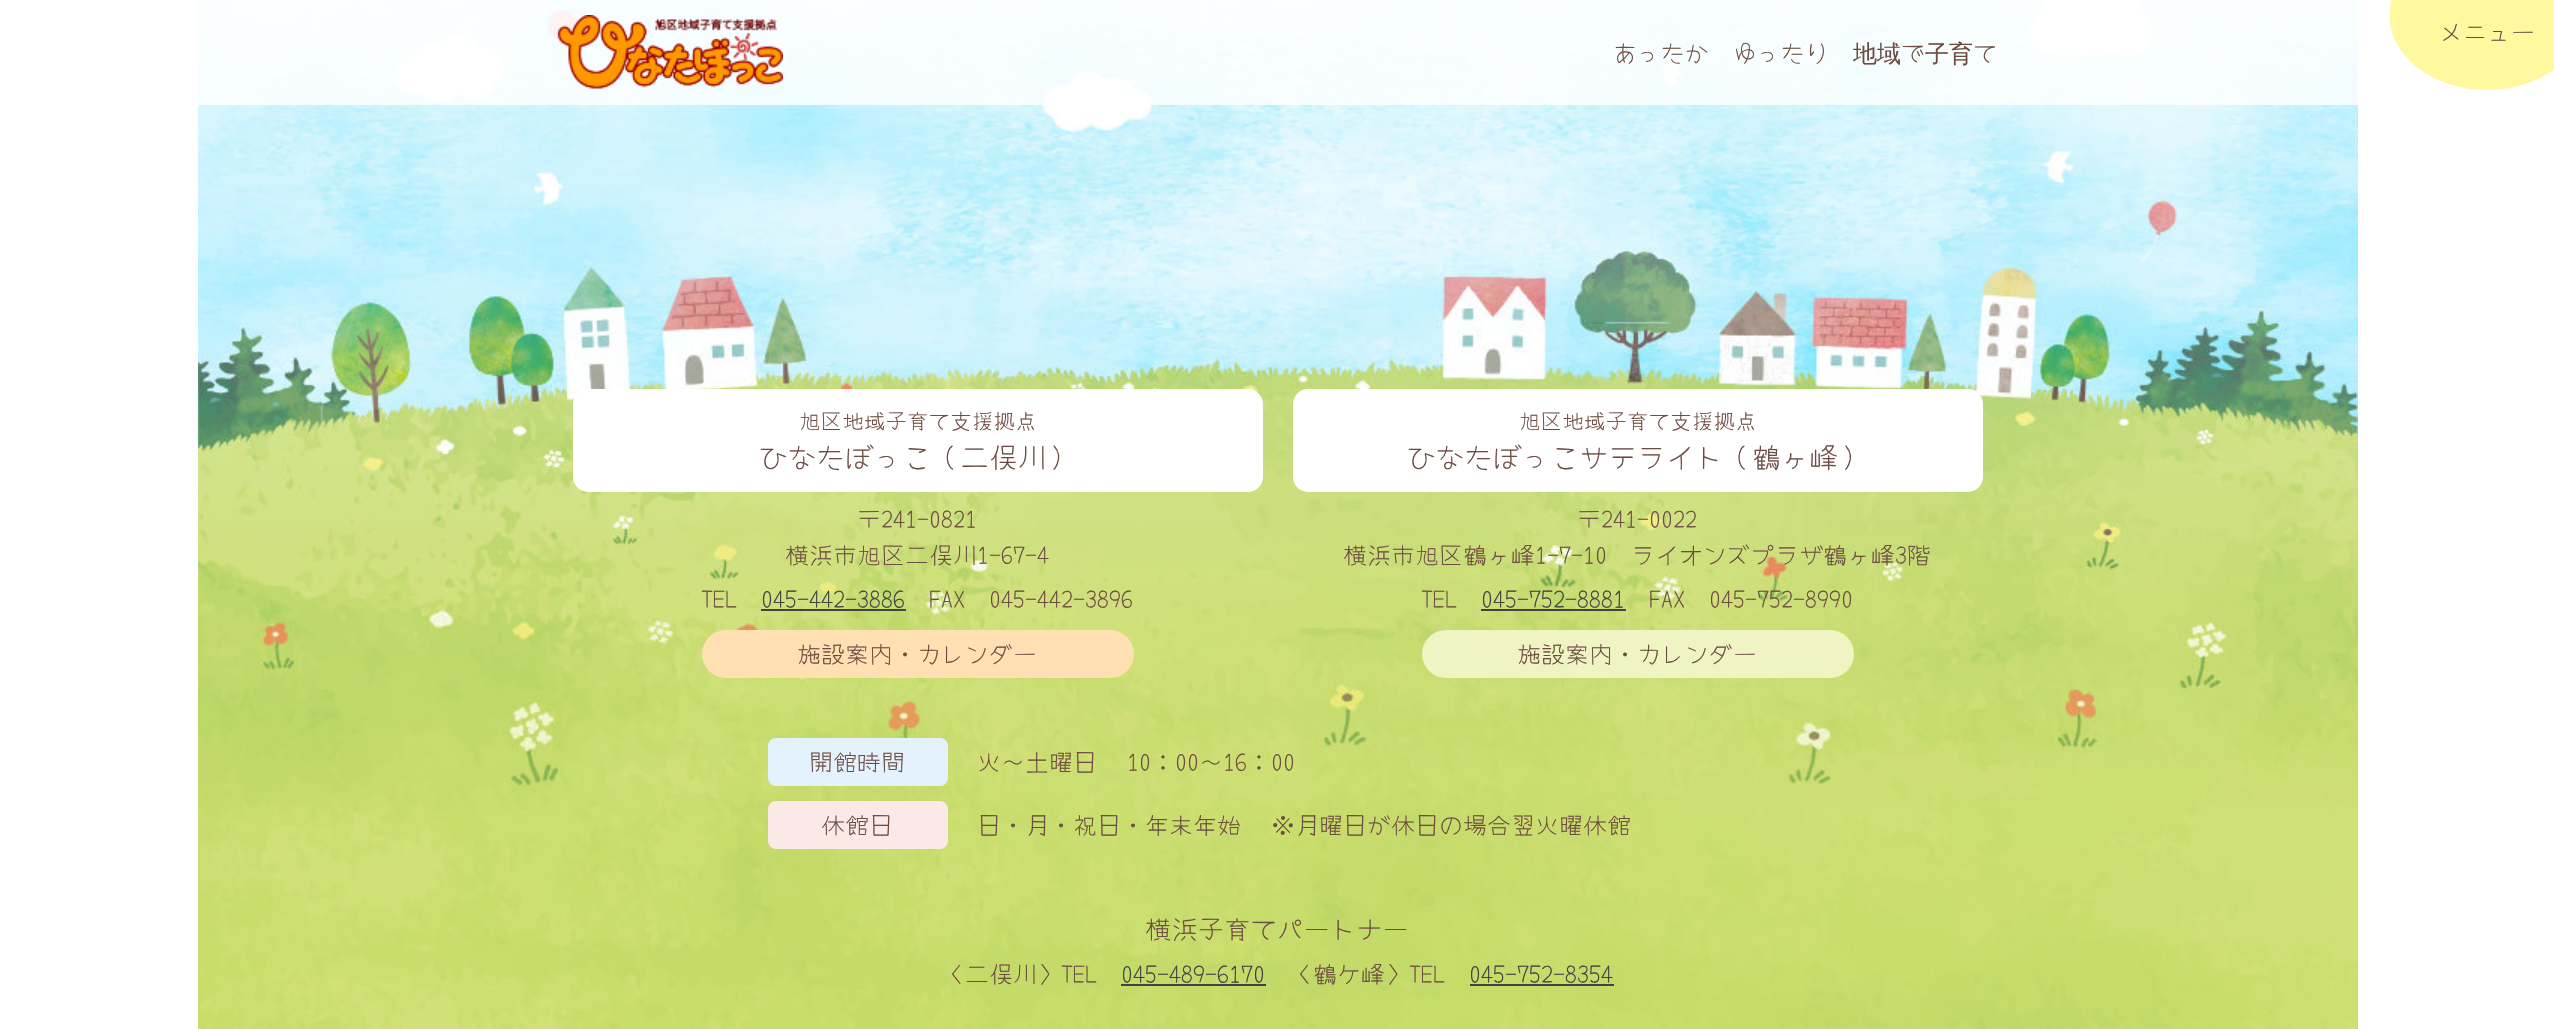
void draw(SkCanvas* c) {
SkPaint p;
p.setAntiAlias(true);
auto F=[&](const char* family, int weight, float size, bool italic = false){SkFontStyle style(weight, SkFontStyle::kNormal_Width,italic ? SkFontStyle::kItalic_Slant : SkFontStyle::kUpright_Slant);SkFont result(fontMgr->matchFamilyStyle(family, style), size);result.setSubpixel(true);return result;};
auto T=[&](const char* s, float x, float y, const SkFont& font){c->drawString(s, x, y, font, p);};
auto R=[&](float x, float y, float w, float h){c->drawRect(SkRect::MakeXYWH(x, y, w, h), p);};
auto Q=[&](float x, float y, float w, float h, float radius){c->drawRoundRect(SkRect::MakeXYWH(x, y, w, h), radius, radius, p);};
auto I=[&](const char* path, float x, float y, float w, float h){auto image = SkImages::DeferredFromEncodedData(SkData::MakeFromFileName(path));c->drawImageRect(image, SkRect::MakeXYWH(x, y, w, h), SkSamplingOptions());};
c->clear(0xffffffff);
I("1.png",198,0,2160,1029);
p.setColor(0xccffffff);
R(198,0,2160,105);
p.setColor(0xfffff89e);
c->drawOval(SkRect::MakeXYWH(2389.5,-60,195,150),p);
auto f1 = F("Yomogi",400,24);
p.setColor(0xff6d4c41);
T("メニュー",2439,41,f1);
I("2.png",557,15,226,74);
T("あったか",1613,62,f1);
T("ゆったり",1733,62,f1);
auto f2 = F("WenQuanYi Zen Hei",500,24);
T("地域",1853,62,f2);
T("で",1901,62,f1);
T("子育",1925,62,f2);
T("て",1973,62,f1);
p.setColor(0xffffffff);
Q(573,389,690,103,15);
auto f3 = F("Yomogi",400,21.6);
p.setColor(0xff6d4c41);
T("旭区地域子育て支援拠点",799,429,f3);
auto f4 = F("Yomogi",400,28.75);
T("ひなたぼっこ（二俣川）",759,468,f4);
T("〒241-0821",857,528,f1);
T("横浜市旭区二俣川1-67-4",785,564,f1);
T("TEL",701,608,f1);
p.setColor(0xff424242);
T("045-442-3886",761,608,f1);
R(761,609,145,2);
p.setColor(0xff6d4c41);
T("FAX",929,608,f1);
T("045-442-3896",989,608,f1);
p.setColor(0xffffe0b2);
Q(702,630,432,48,24);
p.setColor(0xff6d4c41);
T("施設案内・カレンダー",797,663,f1);
p.setColor(0xffffffff);
Q(1293,389,690,103,15);
p.setColor(0xff6d4c41);
T("旭区地域子育て支援拠点",1519,429,f3);
T("ひなたぼっこサテライト（鶴ヶ峰）",1407,468,f4);
T("〒241-0022",1577,528,f1);
T("横浜市旭区鶴ヶ峰1-7-10",1343,564,f1);
T("ライオンズプラザ鶴ヶ峰3階",1631,564,f1);
T("TEL",1421,608,f1);
p.setColor(0xff424242);
T("045-752-8881",1481,608,f1);
R(1481,609,145,2);
p.setColor(0xff6d4c41);
T("FAX",1649,608,f1);
T("045-752-8990",1709,608,f1);
p.setColor(0xfff0f4c3);
Q(1422,630,432,48,24);
p.setColor(0xff6d4c41);
T("施設案内・カレンダー",1517,663,f1);
p.setColor(0xffe3f2fd);
Q(768,738,180,48,8);
p.setColor(0xff6d4c41);
T("開館時間",809,771,f1);
T("火〜土曜日",977,771,f1);
T("10：00〜16：00",1127,771,f1);
p.setColor(0xfffbe9e7);
Q(768,801,180,48,8);
p.setColor(0xff6d4c41);
T("休館日",821,834,f1);
T("日・月・祝日・年末年始",977,834,f1);
T("※月曜日が休日の場合翌火曜休館",1271,834,f1);
auto f5 = F("Yomogi",400,26.4);
T("横浜子育てパートナー",1145,939,f5);
T("〈二俣川〉TEL",941,983,f1);
p.setColor(0xff424242);
T("045-489-6170",1121,983,f1);
R(1121,984,145,2);
p.setColor(0xff6d4c41);
T("〈鶴ケ峰〉TEL",1289,983,f1);
p.setColor(0xff424242);
T("045-752-8354",1469,983,f1);
R(1470,984,144,2);
}
